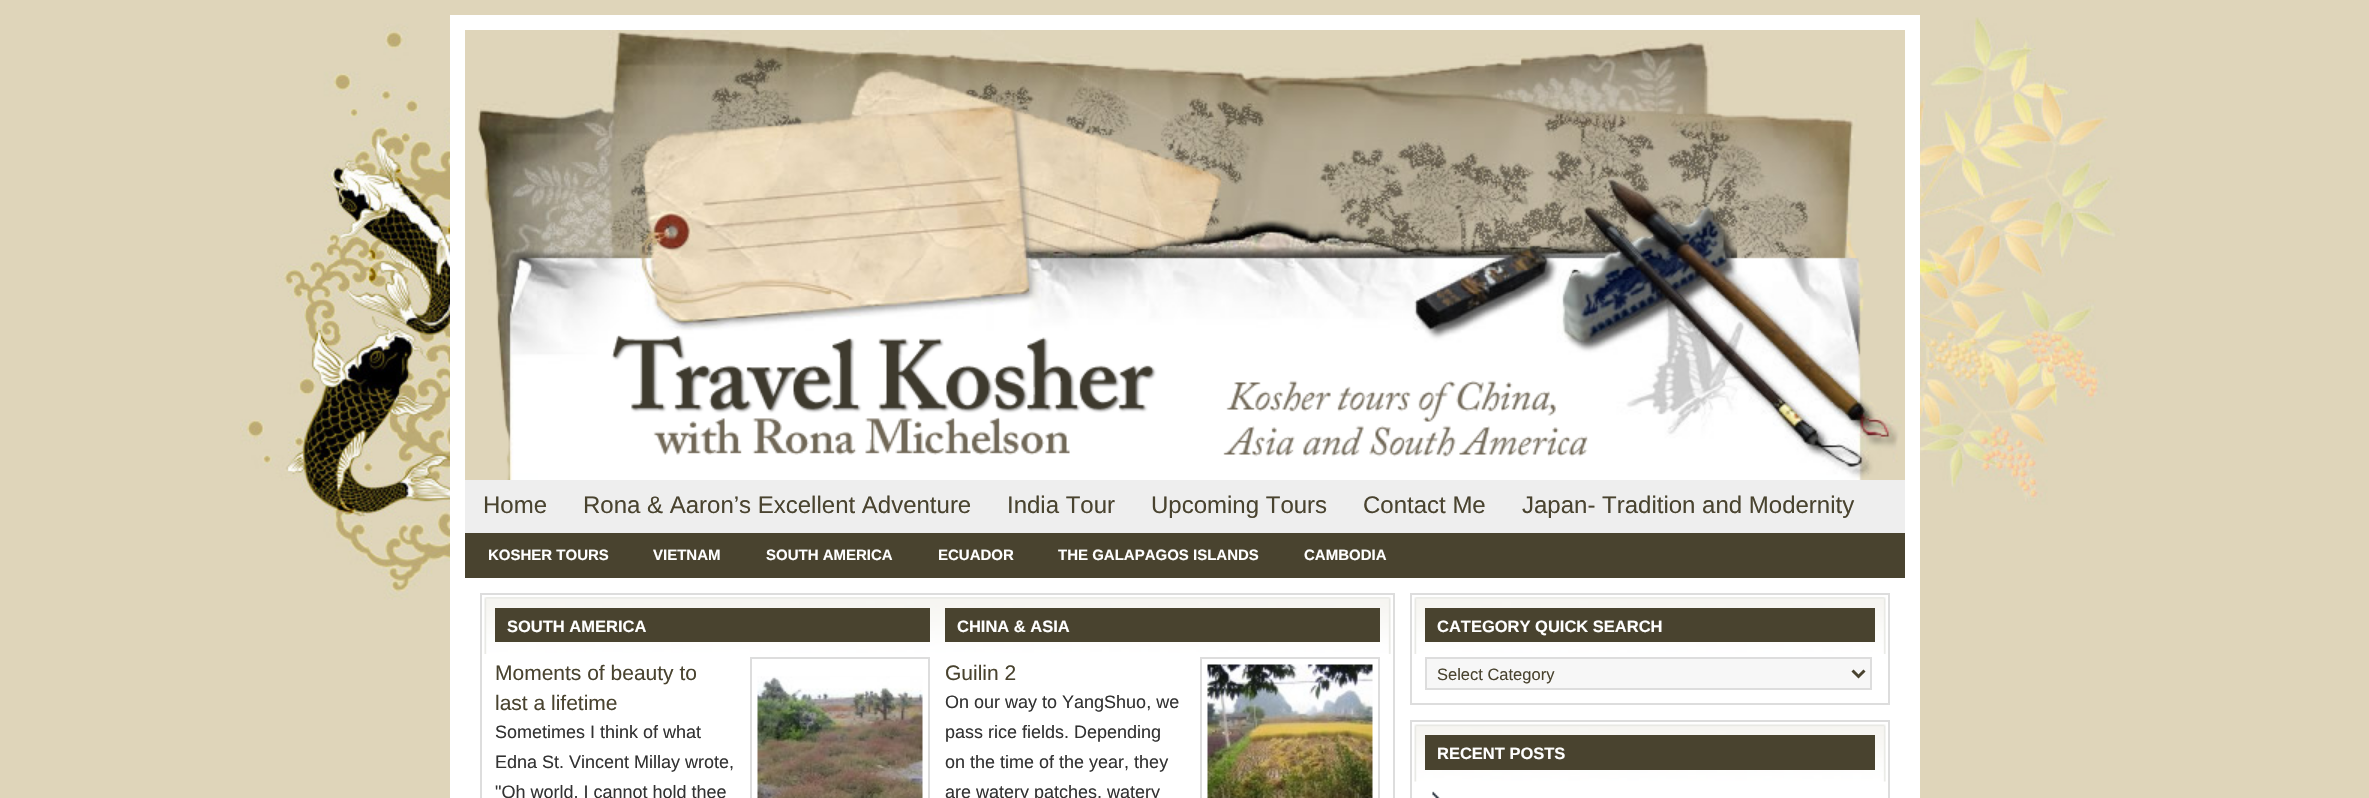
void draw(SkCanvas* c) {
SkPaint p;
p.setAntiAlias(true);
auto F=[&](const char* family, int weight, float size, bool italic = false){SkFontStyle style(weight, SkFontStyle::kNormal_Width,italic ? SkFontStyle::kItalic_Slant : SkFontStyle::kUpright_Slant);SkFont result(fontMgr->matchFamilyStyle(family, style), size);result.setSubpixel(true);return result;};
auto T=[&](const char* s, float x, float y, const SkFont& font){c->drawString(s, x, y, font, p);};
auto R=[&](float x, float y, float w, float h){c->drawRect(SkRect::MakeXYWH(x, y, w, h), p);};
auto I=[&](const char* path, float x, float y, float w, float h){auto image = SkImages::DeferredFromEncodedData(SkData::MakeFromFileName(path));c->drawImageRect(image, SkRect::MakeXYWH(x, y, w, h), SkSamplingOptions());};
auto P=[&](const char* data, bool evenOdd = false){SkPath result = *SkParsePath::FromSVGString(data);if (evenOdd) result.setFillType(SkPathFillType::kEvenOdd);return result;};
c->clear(0xffdfd5ba);
I("1.png",240,17,1880,583);
p.setColor(0xffffffff);
R(450,15,1470,783);
p.setColor(0xffdfd5ba);
R(465,30,1440,450);
I("2.png",477,30,1425,450);
p.setColor(0xffeeeeee);
R(465,480,1440,53);
auto f1 = F("Liberation Sans",400,24);
p.setColor(0xff49432f);
T("Home",483,513,f1);
T("Rona & Aaron’s Excellent Adventure",583,513,f1);
T("India Tour",1007,513,f1);
T("Upcoming Tours",1151,513,f1);
T("Contact Me",1363,513,f1);
T("Japan- Tradition and Modernity",1522,513,f1);
R(465,533,1440,45);
auto f2 = F("Liberation Sans",700,15);
p.setColor(0xffffffff);
T("KOSHER TOURS",488,560,f2);
T("VIETNAM",653,560,f2);
T("SOUTH AMERICA",766,560,f2);
T("ECUADOR",938,560,f2);
T("THE GALAPAGOS ISLANDS",1058,560,f2);
T("CAMBODIA",1304,560,f2);
I("3.png",484,597,907,57);
p.setStroke(true);
p.setStrokeWidth(2);
p.setColor(0xffdddddd);
c->drawRect(SkRect::MakeXYWH(481,594,913,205),p);
p.setStroke(false);
p.setColor(0xff49432f);
R(495,608,435,34);
auto f3 = F("Liberation Sans",700,16.5);
p.setColor(0xffffffff);
T("SOUTH AMERICA",507,632,f3);
auto f4 = F("Liberation Sans",400,21);
p.setColor(0xff49432f);
T("Moments of beauty to",495,680,f4);
T("last a lifetime",495,710,f4);
p.setStroke(true);
p.setColor(0xffdddddd);
c->drawRect(SkRect::MakeXYWH(751,658,178,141),p);
I("4.png",757,676,166,122);
auto f5 = F("Liberation Sans",400,18);
p.setStroke(false);
p.setColor(0xff333333);
T("Sometimes I think of what",495,738,f5);
T("Edna St. Vincent Millay wrote,",495,768,f5);
T("\"Oh world, I cannot hold thee",495,798,f5);
p.setColor(0xff49432f);
R(945,608,435,34);
p.setColor(0xffffffff);
T("CHINA & ASIA",957,632,f3);
p.setColor(0xff49432f);
T("Guilin 2",945,680,f4);
p.setStroke(true);
p.setColor(0xffdddddd);
c->drawRect(SkRect::MakeXYWH(1201,658,178,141),p);
I("5.png",1207,664,166,134);
p.setStroke(false);
p.setColor(0xff333333);
T("On our way to YangShuo, we",945,708,f5);
T("pass rice fields. Depending",945,738,f5);
T("on the time of the year, they",945,768,f5);
T("are watery patches, watery",945,798,f5);
I("6.png",1414,597,472,57);
p.setStroke(true);
p.setColor(0xffdddddd);
c->drawRect(SkRect::MakeXYWH(1411,594,478,110),p);
p.setStroke(false);
p.setColor(0xff49432f);
R(1425,608,450,34);
p.setColor(0xffffffff);
T("CATEGORY QUICK SEARCH",1437,632,f3);
p.setColor(0xfff7f7f7);
c->drawRect(SkRect::MakeXYWH(1426,658,445,31),p);
p.setStroke(true);
p.setColor(0xffdddddd);
c->drawRect(SkRect::MakeXYWH(1426,658,445,31),p);
p.setStrokeWidth(3);
p.setColor(0xff49432f);
c->drawPath(P("M1852.5 670.5l6 6l6-6"),p);
auto f6 = F("Liberation Sans",400,16.5);
p.setStroke(false);
T("Select Category",1437,680,f6);
I("7.png",1414,724,472,58);
p.setStroke(true);
p.setStrokeWidth(2);
p.setColor(0xffdddddd);
c->drawRect(SkRect::MakeXYWH(1411,721,478,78),p);
p.setStroke(false);
p.setColor(0xff49432f);
R(1425,735,450,35);
p.setColor(0xffffffff);
T("RECENT POSTS",1437,759,f3);
I("8.png",1432,791,8,7);
}
